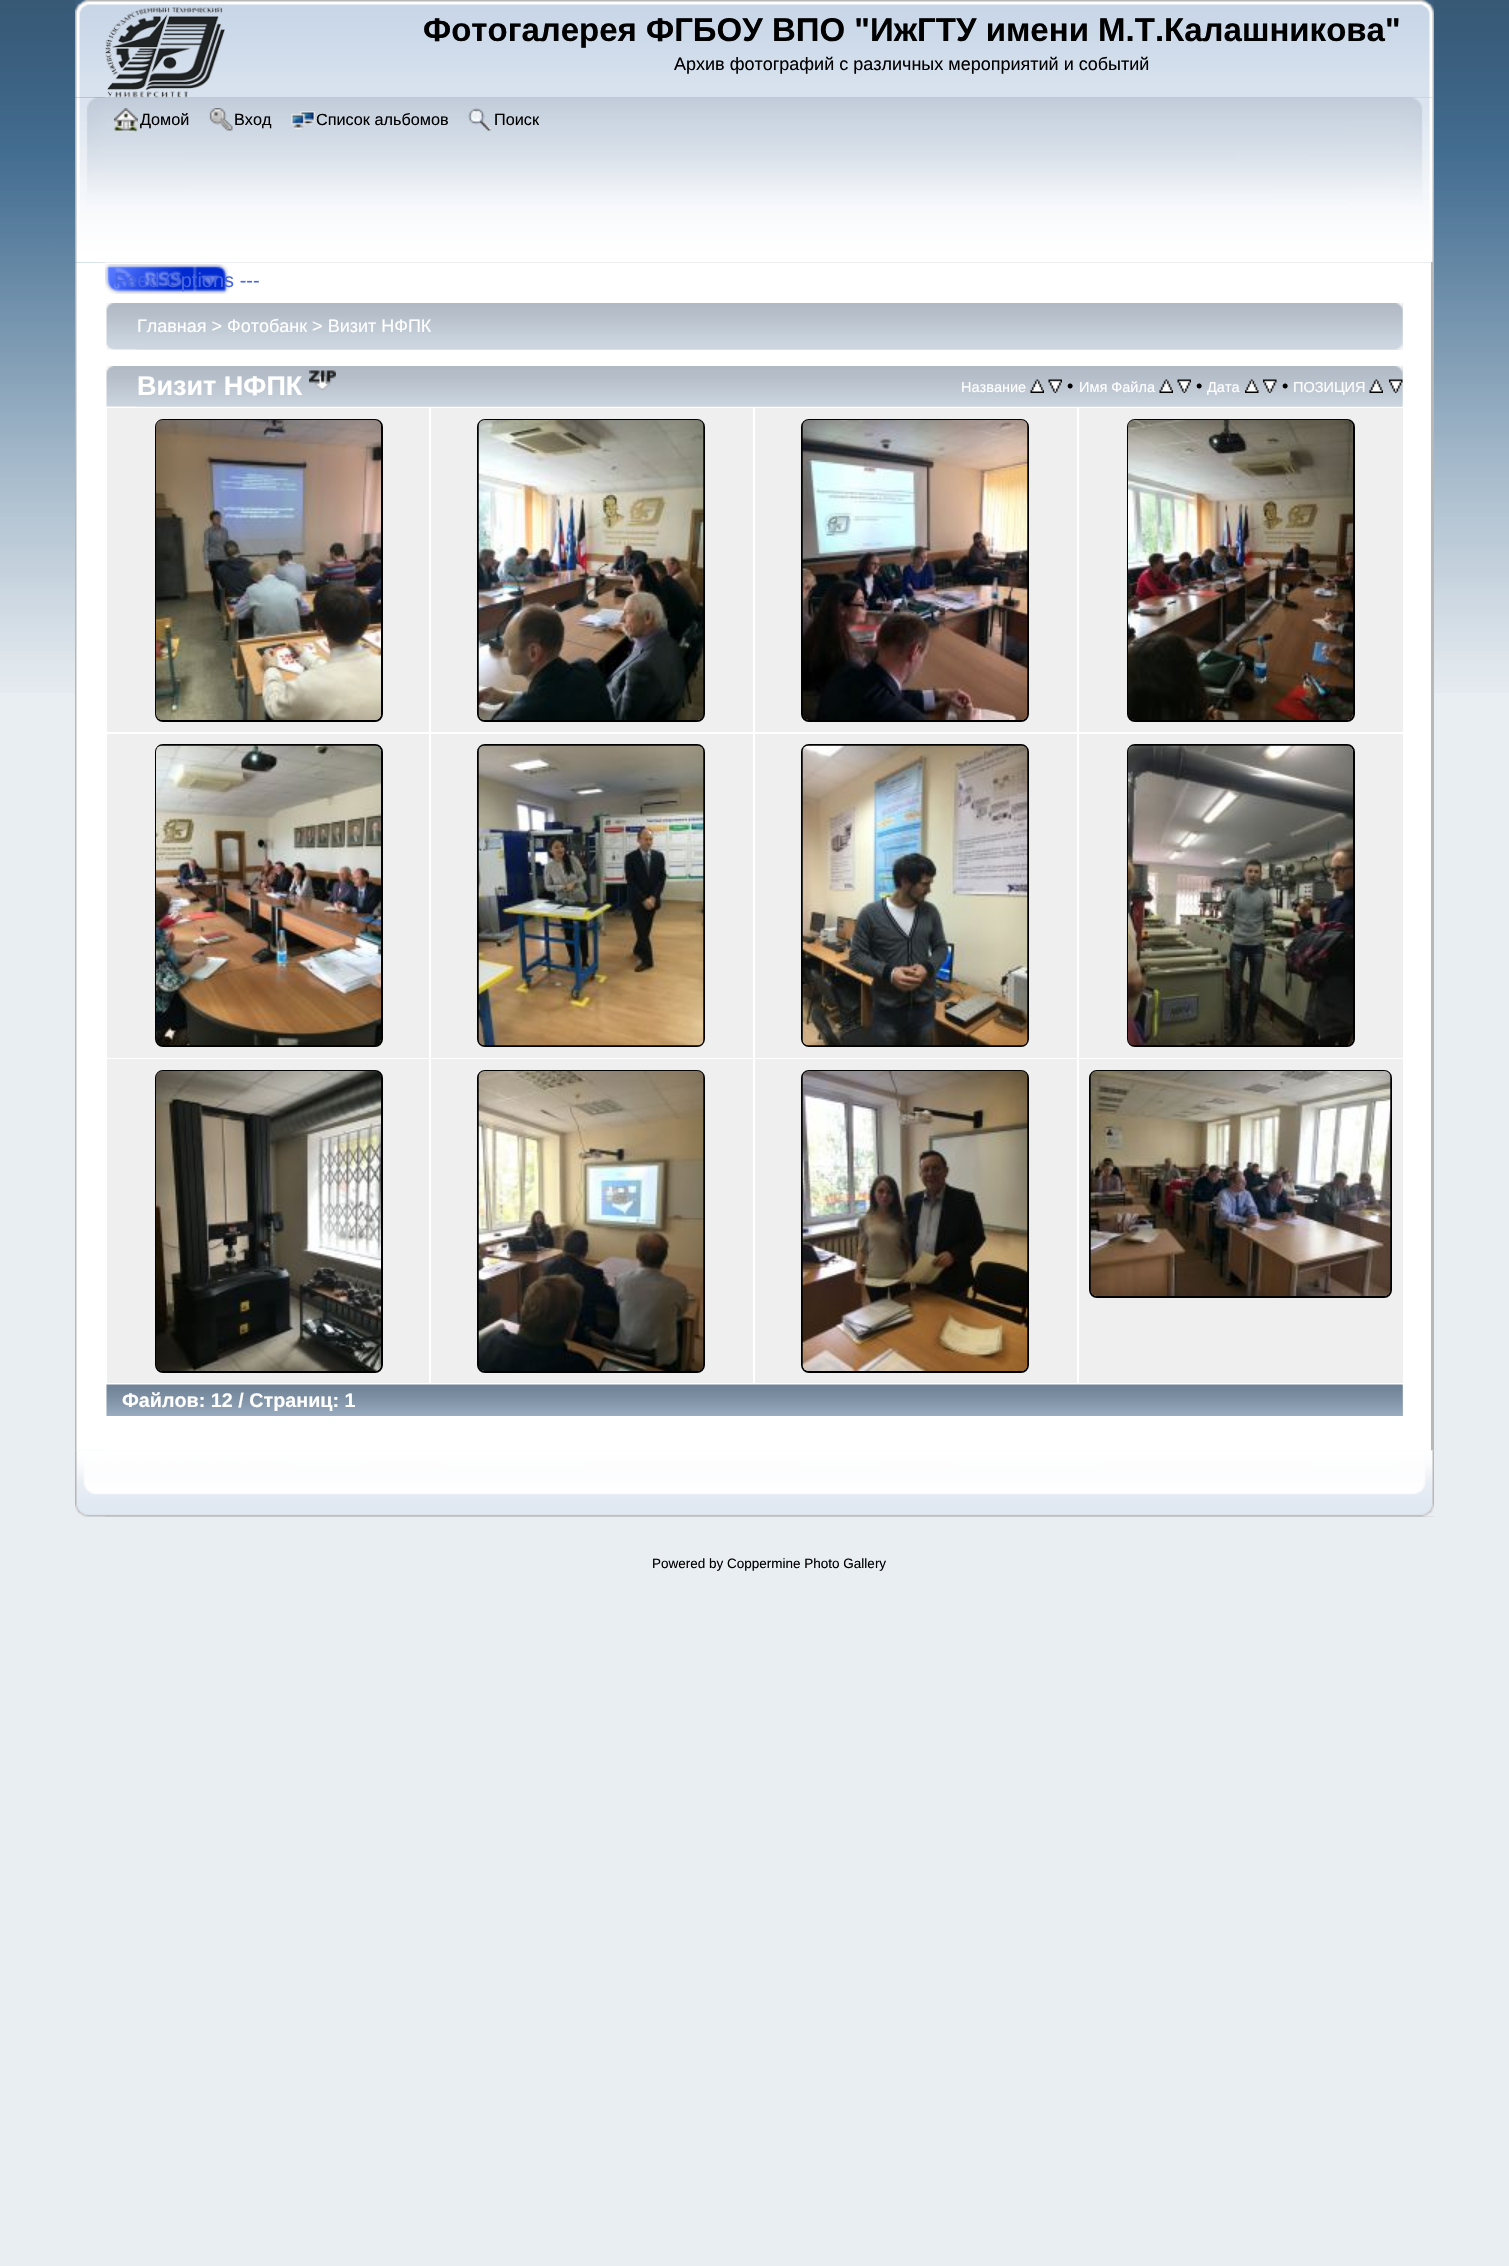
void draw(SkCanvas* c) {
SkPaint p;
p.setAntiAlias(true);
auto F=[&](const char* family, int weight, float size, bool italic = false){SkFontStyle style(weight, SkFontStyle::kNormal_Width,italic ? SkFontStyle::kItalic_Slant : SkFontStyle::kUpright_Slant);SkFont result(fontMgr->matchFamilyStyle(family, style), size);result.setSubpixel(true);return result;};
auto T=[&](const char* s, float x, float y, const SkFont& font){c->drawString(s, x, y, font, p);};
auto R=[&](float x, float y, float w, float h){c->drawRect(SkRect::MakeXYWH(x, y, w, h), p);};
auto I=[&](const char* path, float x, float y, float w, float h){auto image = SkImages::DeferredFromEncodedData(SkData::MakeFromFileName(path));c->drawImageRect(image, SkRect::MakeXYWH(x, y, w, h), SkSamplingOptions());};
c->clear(0xffe9eef2);
I("1.png",0,0,1509,693);
I("2.png",75,0,1359,98);
I("3.png",105,0,1329,98);
I("5.png",75,97,1359,166);
I("6.png",105,97,1329,166);
I("4.png",105,7,120,91);
auto f1 = F("Liberation Sans",700,33);
p.setColor(0xff000000);
T("Фотогалерея ФГБОУ ВПО \"ИжГТУ имени М.Т.Калашникова\"",423,41,f1);
auto f2 = F("Liberation Sans",400,18);
T("Архив фотографий с различных мероприятий и событий",674,70,f2);
I("7.png",114,108,24,24);
auto f3 = F("Liberation Sans",400,16.25);
T("Домой",140,125,f3);
I("8.png",209,108,24,23);
T("Вход",234,125,f3);
I("9.png",291,111,24,19);
T("Список альбомов",316,125,f3);
I("10.png",468,108,24,23);
T("Поиск",494,125,f3);
I("11.png",75,262,1356,1189);
p.setColor(0xffb7b7b7);
R(1431,262,3,1189);
I("12.png",105,264,125,30);
auto f4 = F("Liberation Sans",400,20);
p.setColor(0xff4867e3);
T("Feed Options ---",114,287,f4);
I("13.png",106,303,1297,47);
I("14.png",136,303,1267,47);
p.setColor(0xffffffff);
T("Главная > Фотобанк > Визит НФПК",137,332,f2);
I("15.png",106,366,1297,41);
I("16.png",136,366,1267,41);
auto f5 = F("Liberation Sans",700,27);
T("Визит НФПК",137,395,f5);
I("17.png",309,370,27,20);
auto f6 = F("Liberation Sans",400,14.5);
T("Название",961,392,f6);
I("18.png",1030,379,14,14);
I("19.png",1048,379,14,14);
p.setColor(0xff000000);
T("•",1067,392,f2);
p.setColor(0xffffffff);
T("Имя Файла",1079,392,f6);
I("20.png",1159,379,14,14);
I("19.png",1177,379,14,14);
p.setColor(0xff000000);
T("•",1196,392,f2);
p.setColor(0xffffffff);
T("Дата",1207,392,f6);
I("21.png",1245,379,14,14);
I("22.png",1263,379,14,14);
p.setColor(0xff000000);
T("•",1282,392,f2);
p.setColor(0xffffffff);
T("ПОЗИЦИЯ",1293,392,f6);
I("20.png",1369,379,14,14);
I("23.png",1389,379,14,14);
p.setColor(0xffefefef);
R(107,408,322,324);
p.setStroke(true);
p.setStrokeWidth(2);
p.setColor(0xff000000);
c->drawRoundRect(SkRect::MakeXYWH(156,420,226,301),7,7,p);
I("24.png",156,420,225,300);
p.setStroke(false);
p.setColor(0xffefefef);
R(431,408,322,324);
p.setStroke(true);
p.setColor(0xff000000);
c->drawRoundRect(SkRect::MakeXYWH(478,420,226,301),7,7,p);
I("25.png",478,420,226,300);
p.setStroke(false);
p.setColor(0xffefefef);
R(755,408,322,324);
p.setStroke(true);
p.setColor(0xff000000);
c->drawRoundRect(SkRect::MakeXYWH(802,420,226,301),7,7,p);
I("26.png",802,420,226,300);
p.setStroke(false);
p.setColor(0xffefefef);
R(1079,408,324,324);
p.setStroke(true);
p.setColor(0xff000000);
c->drawRoundRect(SkRect::MakeXYWH(1128,420,226,301),7,7,p);
I("27.png",1128,420,225,300);
p.setStroke(false);
p.setColor(0xffefefef);
R(107,734,322,324);
p.setStroke(true);
p.setColor(0xff000000);
c->drawRoundRect(SkRect::MakeXYWH(156,745,226,301),7,7,p);
I("28.png",156,745,225,301);
p.setStroke(false);
p.setColor(0xffefefef);
R(431,734,322,324);
p.setStroke(true);
p.setColor(0xff000000);
c->drawRoundRect(SkRect::MakeXYWH(478,745,226,301),7,7,p);
I("29.png",478,745,226,301);
p.setStroke(false);
p.setColor(0xffefefef);
R(755,734,322,324);
p.setStroke(true);
p.setColor(0xff000000);
c->drawRoundRect(SkRect::MakeXYWH(802,745,226,301),7,7,p);
I("30.png",802,745,226,301);
p.setStroke(false);
p.setColor(0xffefefef);
R(1079,734,324,324);
p.setStroke(true);
p.setColor(0xff000000);
c->drawRoundRect(SkRect::MakeXYWH(1128,745,226,301),7,7,p);
I("31.png",1128,745,225,301);
p.setStroke(false);
p.setColor(0xffefefef);
R(107,1059,322,324);
p.setStroke(true);
p.setColor(0xff000000);
c->drawRoundRect(SkRect::MakeXYWH(156,1071,226,301),7,7,p);
I("32.png",156,1071,225,300);
p.setStroke(false);
p.setColor(0xffefefef);
R(431,1059,322,324);
p.setStroke(true);
p.setColor(0xff000000);
c->drawRoundRect(SkRect::MakeXYWH(478,1071,226,301),7,7,p);
I("33.png",478,1071,226,300);
p.setStroke(false);
p.setColor(0xffefefef);
R(755,1059,322,324);
p.setStroke(true);
p.setColor(0xff000000);
c->drawRoundRect(SkRect::MakeXYWH(802,1071,226,301),7,7,p);
I("34.png",802,1071,226,300);
p.setStroke(false);
p.setColor(0xffefefef);
R(1079,1059,324,324);
p.setStroke(true);
p.setColor(0xff000000);
c->drawRoundRect(SkRect::MakeXYWH(1090,1071,301,226),7,7,p);
I("35.png",1090,1071,301,225);
p.setStroke(false);
p.setColor(0xffa8b8cc);
R(1402,1385,1,31);
I("36.png",106,1384,1297,32);
auto f7 = F("Liberation Sans",700,19.75);
p.setColor(0xffffffff);
T("Файлов: 12 / Страниц: 1",122,1407,f7);
I("37.png",75,1450,1359,67);
I("38.png",105,1450,1329,67);
auto f8 = F("Liberation Sans",400,13.5);
p.setColor(0xff000000);
T("Powered by Coppermine Photo Gallery",652,1568,f8);
}
